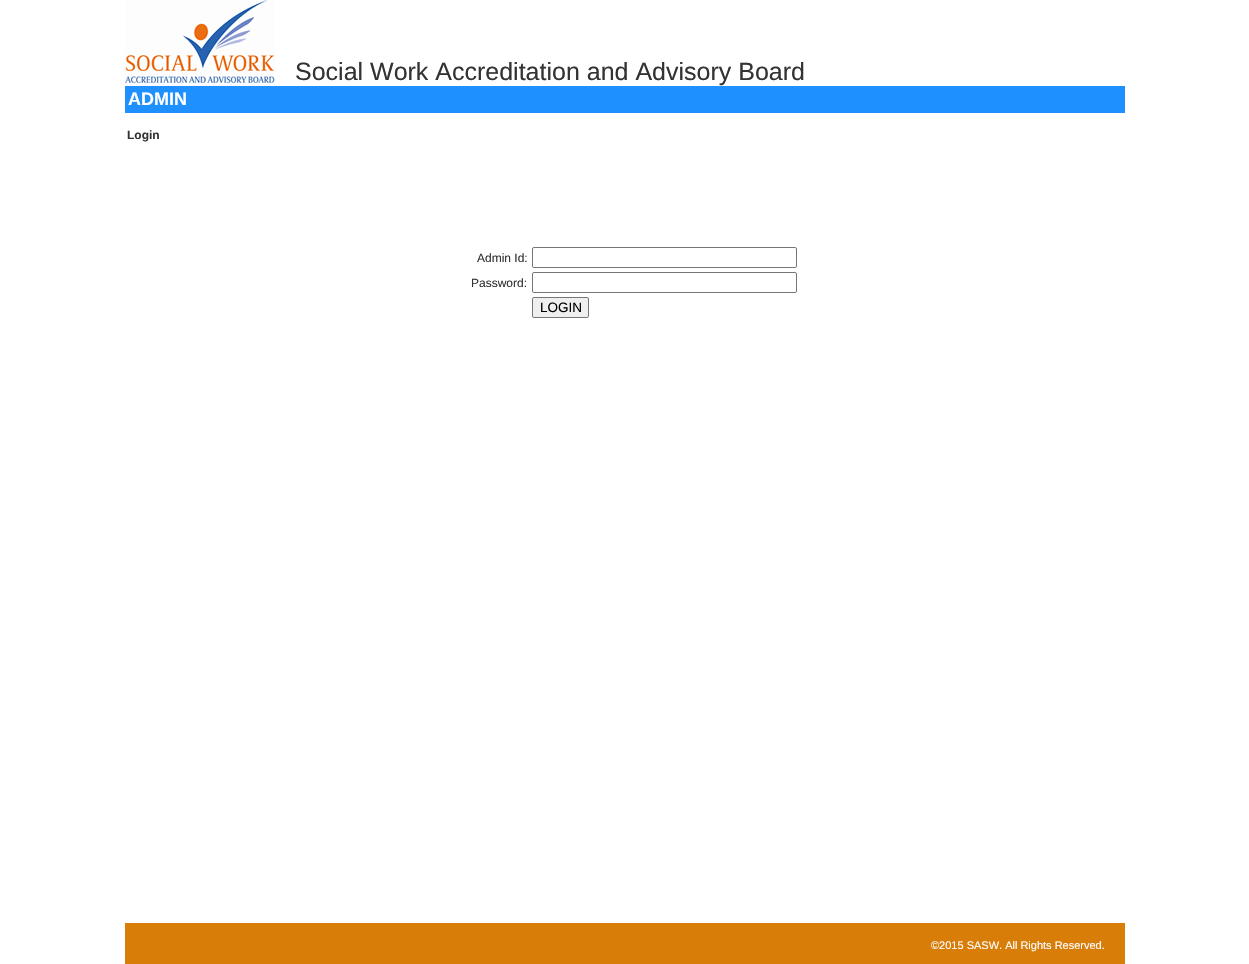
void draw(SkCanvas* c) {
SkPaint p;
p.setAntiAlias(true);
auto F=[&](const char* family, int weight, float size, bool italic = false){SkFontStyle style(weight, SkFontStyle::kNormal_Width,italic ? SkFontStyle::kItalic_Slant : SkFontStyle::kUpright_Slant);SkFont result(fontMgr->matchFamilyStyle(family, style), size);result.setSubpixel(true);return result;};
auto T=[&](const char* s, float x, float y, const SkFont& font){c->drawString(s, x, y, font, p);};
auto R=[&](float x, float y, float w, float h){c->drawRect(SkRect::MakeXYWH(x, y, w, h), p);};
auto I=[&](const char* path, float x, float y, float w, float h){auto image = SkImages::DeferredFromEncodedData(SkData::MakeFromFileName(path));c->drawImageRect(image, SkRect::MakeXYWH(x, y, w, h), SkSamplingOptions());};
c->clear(0xffffffff);
I("1.png",125,0,150,86);
auto f1 = F("Liberation Sans",400,25);
p.setColor(0xff333333);
T("Social Work Accreditation and Advisory Board",295,80,f1);
p.setColor(0xff1e90ff);
R(125,86,1000,27);
auto f2 = F("Liberation Sans",700,18);
p.setColor(0xffffffff);
T("ADMIN",128,105,f2);
auto f3 = F("Liberation Sans",700,12);
p.setColor(0xff333333);
T("Login",127,139,f3);
auto f4 = F("Liberation Sans",400,12);
T("Admin Id:",477,262,f4);
p.setStroke(true);
p.setStrokeWidth(1);
p.setColor(0xff767676);
c->drawRoundRect(SkRect::MakeXYWH(532.5,247.5,264,20),1.5,1.5,p);
p.setStroke(false);
p.setColor(0xff333333);
T("Password:",471,287,f4);
p.setStroke(true);
p.setColor(0xff767676);
c->drawRoundRect(SkRect::MakeXYWH(532.5,272.5,264,20),1.5,1.5,p);
p.setStroke(false);
p.setColor(0xffefefef);
c->drawRoundRect(SkRect::MakeXYWH(532.5,297.5,56,20),1.5,1.5,p);
p.setStroke(true);
p.setColor(0xff767676);
c->drawRoundRect(SkRect::MakeXYWH(532.5,297.5,56,20),1.5,1.5,p);
auto f5 = F("Liberation Sans",400,13.5);
p.setStroke(false);
p.setColor(0xff000000);
T("LOGIN",540,312,f5);
p.setColor(0xffd87d08);
R(125,923,1000,41);
auto f6 = F("Liberation Sans",400,11);
p.setColor(0xffffffff);
T("©2015 SASW. All Rights Reserved.",931,949,f6);
}
